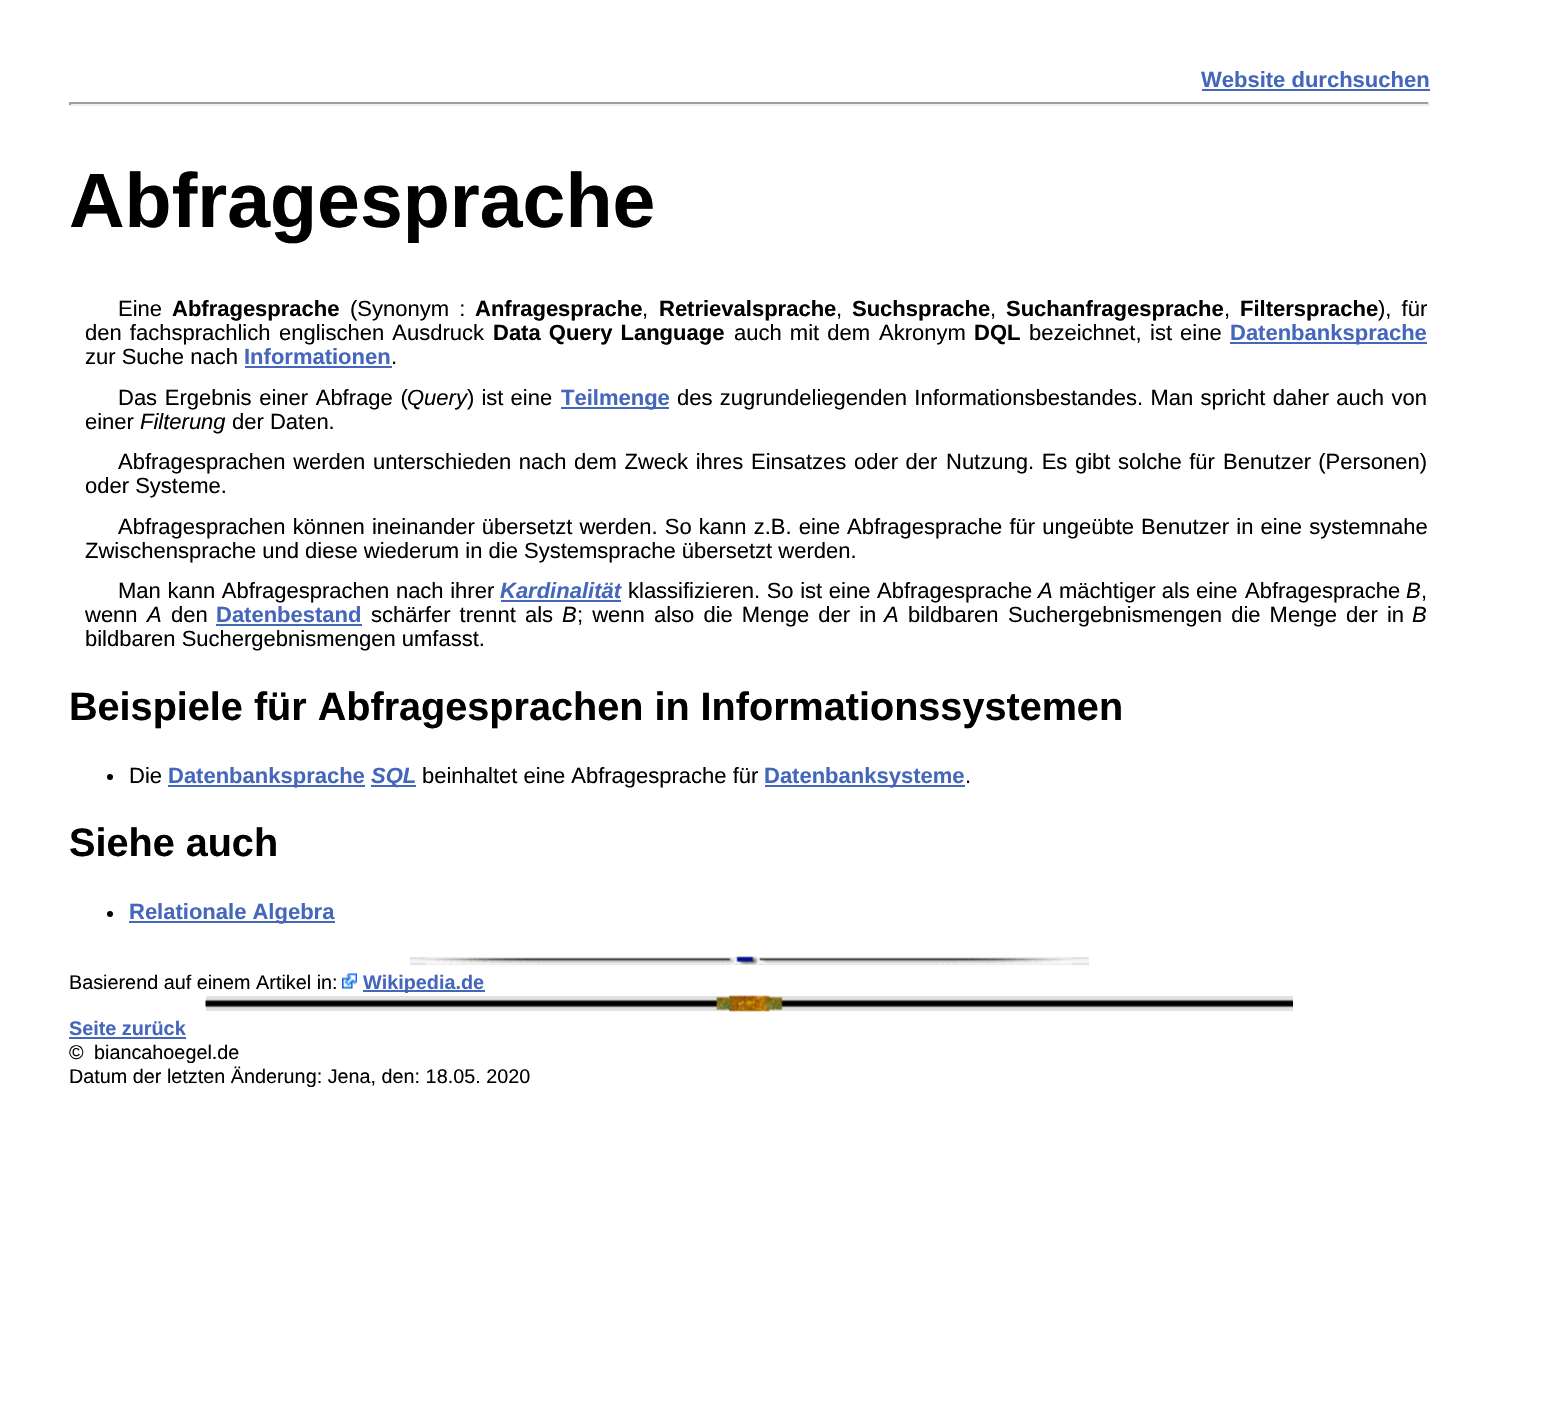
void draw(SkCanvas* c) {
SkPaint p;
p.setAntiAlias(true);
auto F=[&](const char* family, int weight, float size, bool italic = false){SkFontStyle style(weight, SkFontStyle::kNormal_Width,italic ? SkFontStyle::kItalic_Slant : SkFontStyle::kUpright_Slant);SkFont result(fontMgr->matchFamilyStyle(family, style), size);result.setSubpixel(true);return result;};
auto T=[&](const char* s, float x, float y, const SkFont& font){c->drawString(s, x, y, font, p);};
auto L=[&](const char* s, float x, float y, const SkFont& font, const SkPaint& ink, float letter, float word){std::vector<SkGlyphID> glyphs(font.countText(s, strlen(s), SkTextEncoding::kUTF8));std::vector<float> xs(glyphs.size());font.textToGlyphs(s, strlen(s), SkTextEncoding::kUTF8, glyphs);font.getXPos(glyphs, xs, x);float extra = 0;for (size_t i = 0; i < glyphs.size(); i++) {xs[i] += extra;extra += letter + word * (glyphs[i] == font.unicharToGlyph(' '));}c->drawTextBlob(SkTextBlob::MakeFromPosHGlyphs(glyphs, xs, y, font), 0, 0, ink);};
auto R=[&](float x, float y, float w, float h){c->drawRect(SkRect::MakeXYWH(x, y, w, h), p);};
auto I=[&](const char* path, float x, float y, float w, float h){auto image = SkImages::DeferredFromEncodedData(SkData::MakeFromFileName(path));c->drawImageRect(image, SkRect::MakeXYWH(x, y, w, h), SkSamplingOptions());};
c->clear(0xffffffff);
auto f1 = F("Liberation Sans",700,22);
p.setColor(0xff4466bb);
T("Website durchsuchen",1201,87,f1);
R(1202,89,228,2);
p.setColor(0xff9f9f9f);
R(69,102,1361,2);
p.setColor(0xffeeeeee);
R(1428,102,2,3);
R(69,104,1361,2);
p.setColor(0xff9f9f9f);
R(69,102,2,3);
auto f2 = F("Liberation Sans",700,77);
p.setColor(0xff000000);
T("Abfragesprache",69,227,f2);
auto f3 = F("Liberation Sans",400,22);
T("Eine",118,316,f3);
T("Abfragesprache",172,316,f1);
L("(Synonym :",350,316,f3,p,0,4);
T("Anfragesprache",475,316,f1);
T(",",642,316,f3);
T("Retrievalsprache",659,316,f1);
T(",",836,316,f3);
T("Suchsprache",852,316,f1);
T(",",990,316,f3);
T("Suchanfragesprache",1006,316,f1);
T(",",1224,316,f3);
T("Filtersprache",1240,316,f1);
L("), für",1378,316,f3,p,0,4);
L("den fachsprachlich",85,340,f3,p,0,2);
L("englischen Ausdruck",279,340,f3,p,0,2);
L("Data Query Language",493,340,f1,p,0,2);
L("auch mit dem",734,340,f3,p,0,2);
T("Akronym",879,340,f3);
T("DQL",974,340,f1);
T("bezeichnet,",1029,340,f3);
L("ist eine",1150,340,f3,p,0,2);
p.setColor(0xff4466bb);
R(1230,342,197,2);
T("Datenbanksprache",1230,340,f1);
p.setColor(0xff000000);
T("zur Suche nach",85,364,f3);
p.setColor(0xff4466bb);
T("Informationen",244,364,f1);
R(245,366,147,2);
p.setColor(0xff000000);
T(".",391,364,f3);
L("Das Ergebnis einer Abfrage (",118,405,f3,p,0,1.5);
auto f4 = F("Liberation Sans",400,22,true);
T("Query",407,405,f4);
L(") ist eine",467,405,f3,p,0,1);
p.setColor(0xff4466bb);
R(561,407,108,2);
T("Teilmenge",561,405,f1);
p.setColor(0xff000000);
L("des zugrundeliegenden Informationsbestandes. Man spricht daher auch von",677,405,f3,p,0,1.25);
T("einer",85,429,f3);
T("Filterung",140,429,f4);
T("der Daten.",232,429,f3);
L("Abfragesprachen werden unterschieden nach dem Zweck ihres Einsatzes oder der",118,469,f3,p,0,1.5);
L("Nutzung. Es gibt solche für",946,469,f3,p,0,1.5);
L("Benutzer (Personen)",1223,469,f3,p,0,1);
T("oder Systeme.",85,493,f3);
L("Abfragesprachen können ineinander übersetzt werden. So kann z.B. eine",118,534,f3,p,0,1);
L("Abfragesprache für ungeübte Benutzer in eine systemnahe",847,534,f3,p,0,1);
T("Zwischensprache und diese wiederum in die Systemsprache übersetzt werden.",85,558,f3);
L("Man kann Abfragesprachen nach ihrer",118,598,f3,p,0,.5);
auto f5 = F("Liberation Sans",700,22,true);
p.setColor(0xff4466bb);
T("Kardinalität",500,598,f5);
R(501,600,120,2);
p.setColor(0xff000000);
L("klassifizieren. So ist eine Abfragesprache",628,598,f3,p,0,.5);
T("A",1038,598,f4);
T("mächtiger als eine",1059,598,f3);
T("Abfragesprache",1245,598,f3);
T("B",1406,598,f4);
T(",",1421,598,f3);
T("wenn",85,622,f3);
T("A",147,622,f4);
T("den",171,622,f3);
p.setColor(0xff4466bb);
T("Datenbestand",216,622,f1);
R(216,624,146,2);
p.setColor(0xff000000);
L("schärfer trennt als",371,622,f3,p,0,3);
T("B",562,622,f4);
L("; wenn also die Menge der in",577,622,f3,p,0,3);
T("A",884,622,f4);
T("bildbaren",908,622,f3);
L("Suchergebnismengen die Menge der in",1008,622,f3,p,0,3);
T("B",1412,622,f4);
T("bildbaren Suchergebnismengen umfasst.",85,646,f3);
auto f6 = F("Liberation Sans",700,39.6);
T("Beispiele für Abfragesprachen in Informationssystemen",69,720,f6);
c->drawCircle(110,777,3,p);
T("Die",129,783,f3);
p.setColor(0xff4466bb);
R(168,785,197,2);
T("Datenbanksprache",168,783,f1);
R(371,785,45,2);
T("SQL",371,783,f5);
p.setColor(0xff000000);
T("beinhaltet eine Abfragesprache für",422,783,f3);
p.setColor(0xff4466bb);
R(765,785,200,2);
T("Datenbanksysteme",764,783,f1);
p.setColor(0xff000000);
T(".",965,783,f3);
T("Siehe auch",69,856,f6);
c->drawCircle(110,914,3,p);
p.setColor(0xff4466bb);
R(129,921,206,2);
T("Relationale Algebra",129,919,f1);
p.setColor(0xffe1e1e1);
R(410,957,679,8);
I("1.png",409,956,680,9);
auto f7 = F("Liberation Sans",400,19.8);
p.setColor(0xff000000);
T("Basierend auf einem Artikel in:",69,989,f7);
I("2.png",342,973,15,16);
p.setColor(0xff4466bb);
R(363,990,122,2);
auto f8 = F("Liberation Sans",700,19.8);
T("Wikipedia.de",363,989,f8);
p.setColor(0xffe1e1e1);
R(206,996,1087,15);
I("3.png",205,995,1088,17);
p.setColor(0xff4466bb);
T("Seite zurück",69,1035,f8);
R(69,1037,117,2);
p.setColor(0xff000000);
T("©",69,1059,f7);
T("biancahoegel.de",94,1059,f7);
T("Datum der letzten Änderung: Jena, den: 18.05. 2020",69,1083,f7);
}
